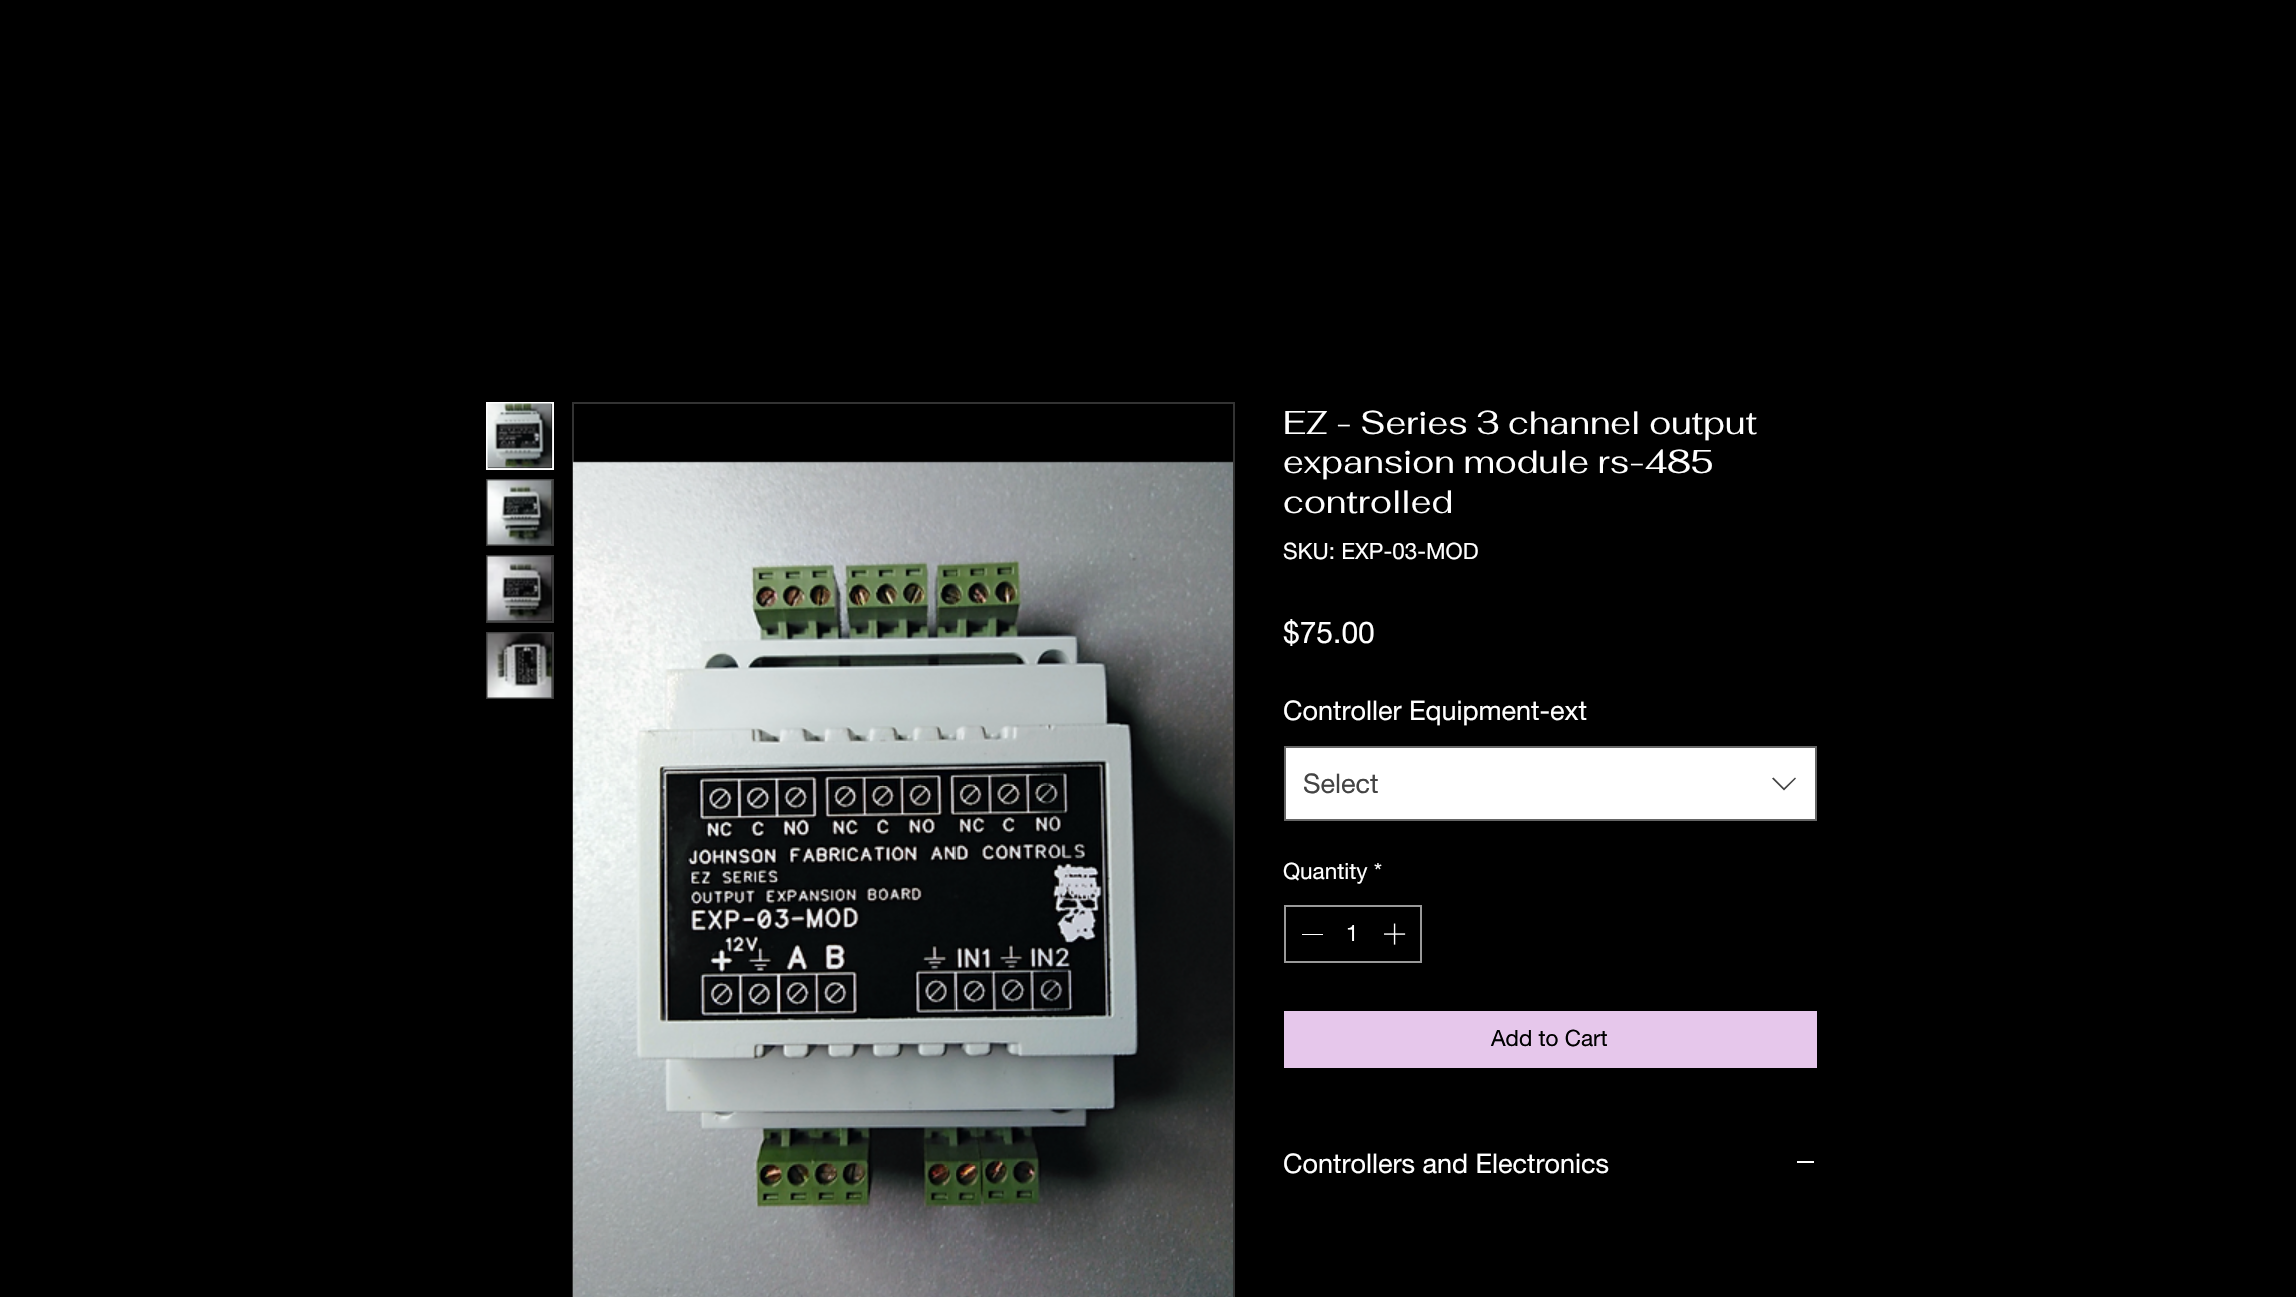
void draw(SkCanvas* c) {
SkPaint p;
p.setAntiAlias(true);
auto F=[&](const char* family, int weight, float size, bool italic = false){SkFontStyle style(weight, SkFontStyle::kNormal_Width,italic ? SkFontStyle::kItalic_Slant : SkFontStyle::kUpright_Slant);SkFont result(fontMgr->matchFamilyStyle(family, style), size);result.setSubpixel(true);return result;};
auto T=[&](const char* s, float x, float y, const SkFont& font){c->drawString(s, x, y, font, p);};
auto R=[&](float x, float y, float w, float h){c->drawRect(SkRect::MakeXYWH(x, y, w, h), p);};
auto I=[&](const char* path, float x, float y, float w, float h){auto image = SkImages::DeferredFromEncodedData(SkData::MakeFromFileName(path));c->drawImageRect(image, SkRect::MakeXYWH(x, y, w, h), SkSamplingOptions());};
auto P=[&](const char* data, bool evenOdd = false){SkPath result = *SkParsePath::FromSVGString(data);if (evenOdd) result.setFillType(SkPathFillType::kEvenOdd);return result;};
c->clear(0xff000000);
p.setStroke(true);
p.setStrokeWidth(2);
p.setColor(0xffffffff);
c->drawRect(SkRect::MakeXYWH(487,403,66,66),p);
I("1.png",487,403,66,66);
p.setColor(0xff3b3b3b);
c->drawRect(SkRect::MakeXYWH(487,480,66,65),p);
I("2.png",487,479,66,66);
c->drawRect(SkRect::MakeXYWH(487,556,66,66),p);
I("3.png",487,556,66,66);
c->drawRect(SkRect::MakeXYWH(487,633,66,65),p);
I("4.png",487,632,66,66);
p.setColor(0xff333333);
c->drawRect(SkRect::MakeXYWH(573,403,661,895),p);
I("5.png",573,461,660,836);
auto f1 = F("Fahkwang",400,33);
p.setStroke(false);
p.setColor(0xffffffff);
T("EZ - Series 3 channel output",1283,434,f1);
T("expansion module rs-485",1283,473,f1);
T("controlled",1283,513,f1);
auto f2 = F("helvetica neue",400,22.5);
T("SKU: EXP-03-MOD",1283,559,f2);
auto f3 = F("helvetica neue",400,30);
T("$75.00",1283,643,f3);
auto f4 = F("helvetica neue",400,27);
T("Controller Equipment-ext",1283,720,f4);
c->drawRect(SkRect::MakeXYWH(1285,747,531,73),p);
p.setStroke(true);
p.setColor(0xff666666);
c->drawRect(SkRect::MakeXYWH(1285,747,531,73),p);
p.setStroke(false);
p.setColor(0xff444444);
T("Select",1303,793,f4);
c->drawPath(P("M1795 777.5l1 1l-12 12l-12-12l1.5-1l10.5 10.5z",true),p);
p.setColor(0xffffffff);
T("Quantity *",1283,879,f2);
p.setStroke(true);
p.setColor(0xff999999);
c->drawRect(SkRect::MakeXYWH(1285,906,136,56),p);
p.setStroke(false);
p.setColor(0xffffffff);
R(1302,934,21,1);
T("1",1346,941,f2);
I("6.png",1384,923,22,22);
p.setColor(0xffe6c7eb);
R(1284,1011,533,57);
p.setColor(0xff000000);
T("Add to Cart",1491,1046,f2);
p.setColor(0xffffffff);
T("Controllers and Electronics",1283,1173,f4);
R(1797,1161,17,2);
}
